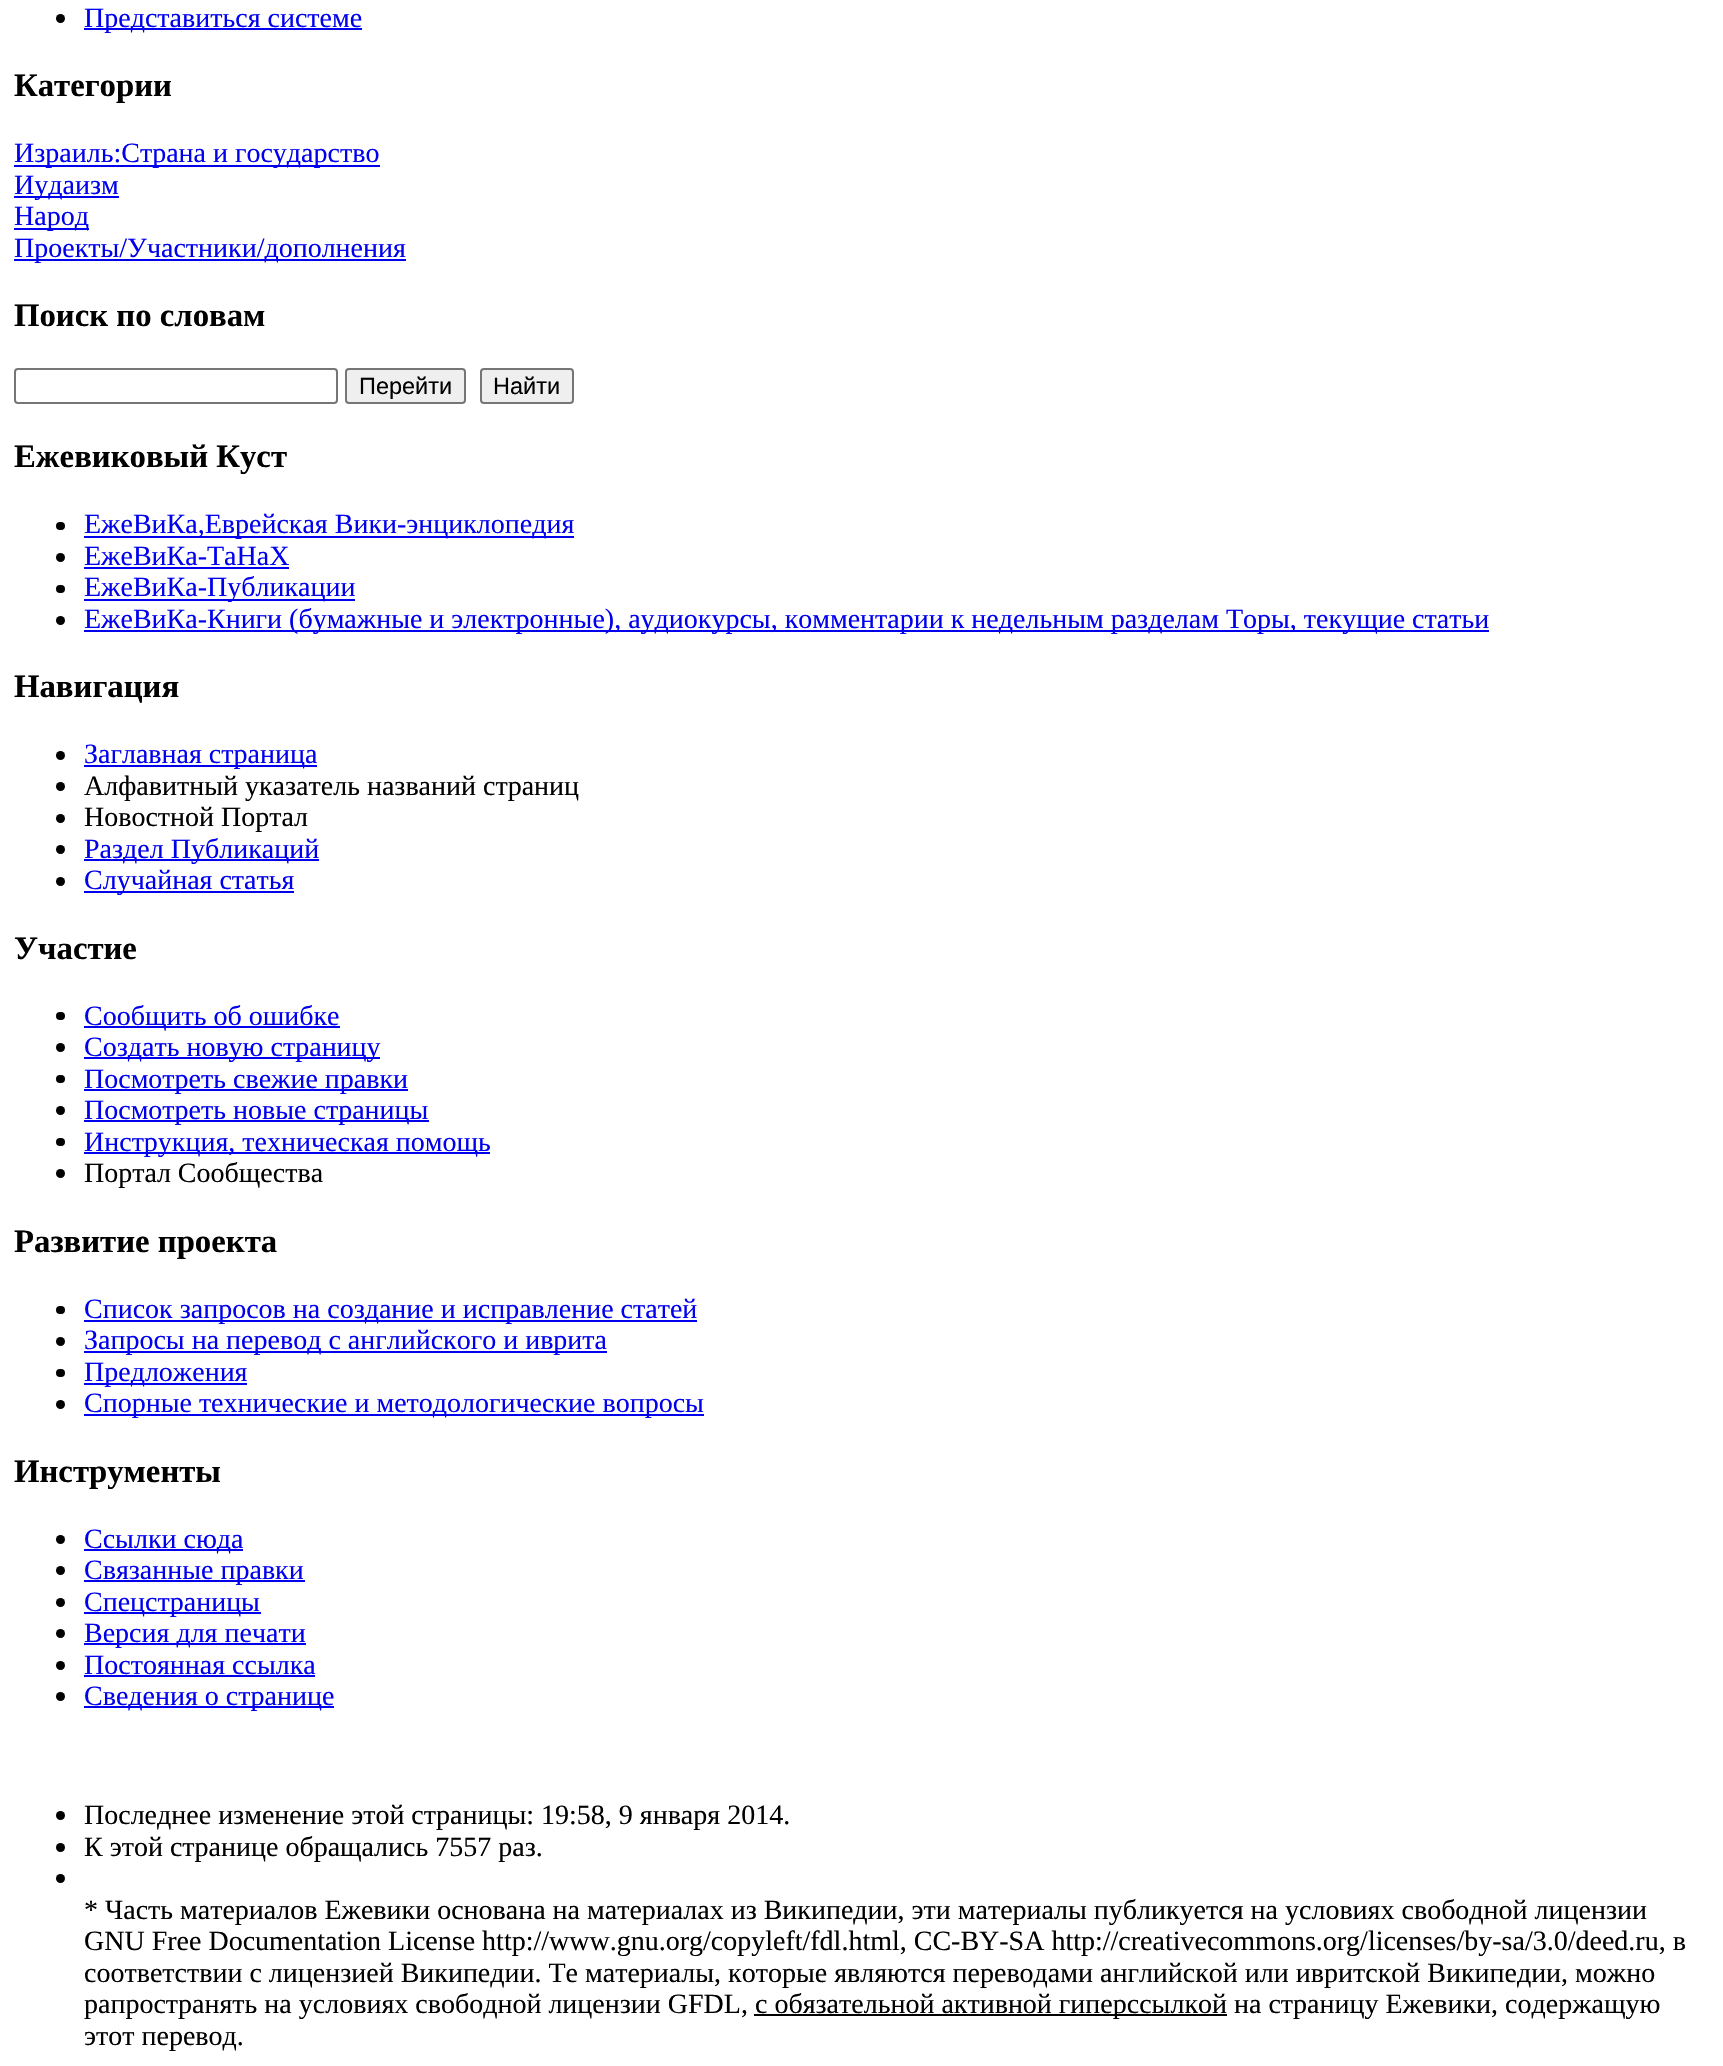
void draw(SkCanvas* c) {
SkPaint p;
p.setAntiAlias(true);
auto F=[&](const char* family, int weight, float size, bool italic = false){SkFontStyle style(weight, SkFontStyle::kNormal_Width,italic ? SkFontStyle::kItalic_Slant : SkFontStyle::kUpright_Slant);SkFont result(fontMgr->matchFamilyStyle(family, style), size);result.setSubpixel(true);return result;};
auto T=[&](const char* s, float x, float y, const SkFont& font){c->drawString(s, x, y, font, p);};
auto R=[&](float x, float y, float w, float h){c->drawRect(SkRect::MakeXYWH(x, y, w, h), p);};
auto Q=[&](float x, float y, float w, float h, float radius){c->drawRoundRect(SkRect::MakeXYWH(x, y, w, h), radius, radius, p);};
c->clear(0xffffffff);
p.setColor(0xff000000);
c->drawCircle(60.5,18.5,4.5,p);
p.setColor(0xff0000ee);
R(84,28,278,2);
auto f1 = F("Liberation Serif",400,28);
T("Представиться системе",84,27,f1);
auto f2 = F("Liberation Serif",700,32.75);
p.setColor(0xff000000);
T("Категории",14,96,f2);
p.setColor(0xff0000ee);
R(14,165,366,2);
T("Израиль:Страна и государство",14,162,f1);
R(14,196,105,2);
T("Иудаизм",14,194,f1);
R(14,228,75,2);
T("Народ",14,225,f1);
R(14,259,392,2);
T("Проекты/Участники/дополнения",14,257,f1);
p.setColor(0xff000000);
T("Поиск по словам",14,326,f2);
p.setStroke(true);
p.setStrokeWidth(2);
p.setColor(0xff767676);
c->drawRoundRect(SkRect::MakeXYWH(15,369,322,34),3,3,p);
p.setStroke(false);
p.setColor(0xffefefef);
c->drawRoundRect(SkRect::MakeXYWH(346,369,119,34),3,3,p);
p.setStroke(true);
p.setColor(0xff767676);
c->drawRoundRect(SkRect::MakeXYWH(346,369,119,34),3,3,p);
auto f3 = F("Liberation Sans",400,23.5);
p.setStroke(false);
p.setColor(0xff000000);
T("Перейти",359,394,f3);
p.setColor(0xffefefef);
c->drawRoundRect(SkRect::MakeXYWH(481,369,92,34),3,3,p);
p.setStroke(true);
p.setColor(0xff767676);
c->drawRoundRect(SkRect::MakeXYWH(481,369,92,34),3,3,p);
p.setStroke(false);
p.setColor(0xff000000);
T("Найти",493,394,f3);
T("Ежевиковый Куст",14,467,f2);
Q(56,522,9,8,4);
p.setColor(0xff0000ee);
R(84,536,490,2);
T("ЕжеВиКа,Еврейская Вики-энциклопедия",84,533,f1);
p.setColor(0xff000000);
c->drawCircle(60.5,557.5,4.5,p);
p.setColor(0xff0000ee);
T("ЕжеВиКа-ТаНаХ",84,565,f1);
R(84,567,205,2);
p.setColor(0xff000000);
Q(56,585,9,8,4);
p.setColor(0xff0000ee);
R(84,599,271,2);
T("ЕжеВиКа-Публикации",84,596,f1);
p.setColor(0xff000000);
c->drawCircle(60.5,620.5,4.5,p);
p.setColor(0xff0000ee);
R(84,630,1405,2);
T("ЕжеВиКа-Книги (бумажные и электронные), аудиокурсы, комментарии к недельным разделам Торы, текущие статьи",84,628,f1);
p.setColor(0xff000000);
T("Навигация",14,697,f2);
c->drawCircle(60.5,755.5,4.5,p);
p.setColor(0xff0000ee);
R(84,765,233,2);
T("Заглавная страница",84,763,f1);
p.setColor(0xff000000);
c->drawCircle(60.5,786.5,4.5,p);
T("Алфавитный указатель названий страниц",84,795,f1);
c->drawCircle(60.5,818.5,4.5,p);
T("Новостной Портал",84,826,f1);
c->drawCircle(60.5,849.5,4.5,p);
p.setColor(0xff0000ee);
R(84,859,235,2);
T("Раздел Публикаций",84,858,f1);
p.setColor(0xff000000);
c->drawCircle(60.5,881.5,4.5,p);
p.setColor(0xff0000ee);
R(84,891,210,2);
T("Случайная статья",84,889,f1);
p.setColor(0xff000000);
T("Участие",14,959,f2);
Q(56,1012,9,8,4);
p.setColor(0xff0000ee);
R(84,1026,256,2);
T("Сообщить об ошибке",84,1025,f1);
p.setColor(0xff000000);
c->drawCircle(60.5,1047.5,4.5,p);
p.setColor(0xff0000ee);
R(84,1057,296,2);
T("Создать новую страницу",84,1056,f1);
p.setColor(0xff000000);
Q(56,1075,9,8,4);
p.setColor(0xff0000ee);
R(84,1089,324,2);
T("Посмотреть свежие правки",84,1088,f1);
p.setColor(0xff000000);
c->drawCircle(60.5,1110.5,4.5,p);
p.setColor(0xff0000ee);
R(84,1120,345,2);
T("Посмотреть новые страницы",84,1119,f1);
p.setColor(0xff000000);
Q(56,1138,9,8,4);
p.setColor(0xff0000ee);
R(84,1152,406,2);
T("Инструкция, техническая помощь",84,1151,f1);
p.setColor(0xff000000);
c->drawCircle(60.5,1173.5,4.5,p);
T("Портал Сообщества",84,1182,f1);
T("Развитие проекта",14,1252,f2);
Q(56,1306,9,8,4);
p.setColor(0xff0000ee);
R(84,1320,613,2);
T("Список запросов на создание и исправление статей",84,1318,f1);
p.setColor(0xff000000);
c->drawCircle(60.5,1341.5,4.5,p);
p.setColor(0xff0000ee);
R(84,1351,523,2);
T("Запросы на перевод с английского и иврита",84,1349,f1);
p.setColor(0xff000000);
Q(56,1369,9,8,4);
p.setColor(0xff0000ee);
R(84,1383,163,2);
T("Предложения",84,1381,f1);
p.setColor(0xff000000);
c->drawCircle(60.5,1404.5,4.5,p);
p.setColor(0xff0000ee);
R(84,1414,620,2);
T("Спорные технические и методологические вопросы",84,1412,f1);
p.setColor(0xff000000);
T("Инструменты",14,1482,f2);
c->drawCircle(60.5,1539.5,4.5,p);
p.setColor(0xff0000ee);
R(84,1549,159,2);
T("Ссылки сюда",84,1548,f1);
p.setColor(0xff000000);
c->drawCircle(60.5,1570.5,4.5,p);
p.setColor(0xff0000ee);
R(84,1580,221,2);
T("Связанные правки",84,1579,f1);
p.setColor(0xff000000);
c->drawCircle(60.5,1602.5,4.5,p);
p.setColor(0xff0000ee);
R(84,1612,177,2);
T("Спецстраницы",84,1611,f1);
p.setColor(0xff000000);
c->drawCircle(60.5,1633.5,4.5,p);
p.setColor(0xff0000ee);
R(84,1643,222,2);
T("Версия для печати",84,1642,f1);
p.setColor(0xff000000);
c->drawCircle(60.5,1665.5,4.5,p);
p.setColor(0xff0000ee);
T("Постоянная ссылка",84,1674,f1);
R(84,1675,231,2);
p.setColor(0xff000000);
c->drawCircle(60.5,1696.5,4.5,p);
p.setColor(0xff0000ee);
R(84,1706,250,2);
T("Сведения о странице",84,1705,f1);
p.setColor(0xff000000);
c->drawCircle(60.5,1815.5,4.5,p);
T("Последнее изменение этой страницы: 19:58, 9 января 2014.",84,1824,f1);
c->drawCircle(60.5,1847.5,4.5,p);
T("К этой странице обращались 7557 раз.",84,1856,f1);
c->drawCircle(60.5,1878.5,4.5,p);
T("* Часть материалов Ежевики основана на материалах из Википедии, эти материалы публикуется на условиях свободной лицензии",84,1919,f1);
T("GNU Free Documentation License http://www.gnu.org/copyleft/fdl.html, CC-BY-SA http://creativecommons.org/licenses/by-sa/3.0/deed.ru, в",84,1950,f1);
T("соответствии с лицензией Википедии. Те материалы, которые являются переводами английской или ивритской Википедии, можно",84,1982,f1);
T("рапространять на условиях свободной лицензии GFDL,",84,2013,f1);
R(754,2014,473,2);
T("с обязательной активной гиперссылкой на страницу Ежевики, содержащую",755,2013,f1);
T("этот перевод.",84,2045,f1);
}
